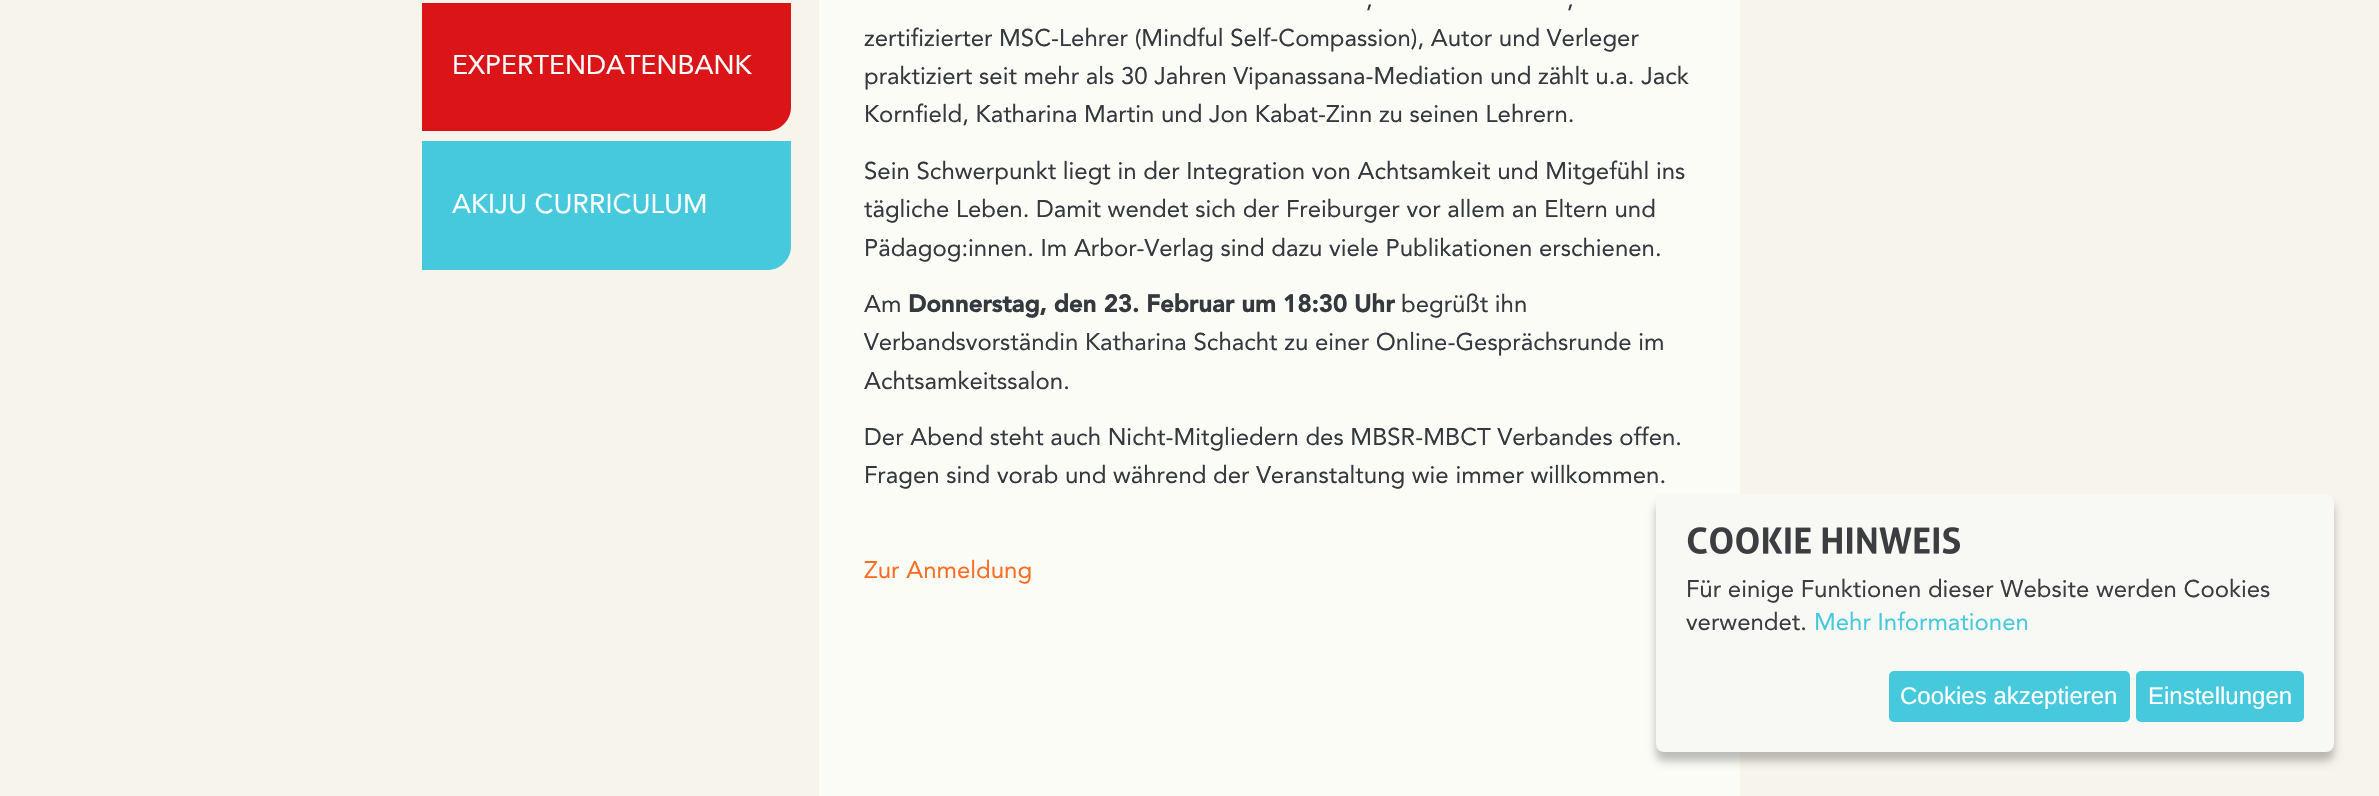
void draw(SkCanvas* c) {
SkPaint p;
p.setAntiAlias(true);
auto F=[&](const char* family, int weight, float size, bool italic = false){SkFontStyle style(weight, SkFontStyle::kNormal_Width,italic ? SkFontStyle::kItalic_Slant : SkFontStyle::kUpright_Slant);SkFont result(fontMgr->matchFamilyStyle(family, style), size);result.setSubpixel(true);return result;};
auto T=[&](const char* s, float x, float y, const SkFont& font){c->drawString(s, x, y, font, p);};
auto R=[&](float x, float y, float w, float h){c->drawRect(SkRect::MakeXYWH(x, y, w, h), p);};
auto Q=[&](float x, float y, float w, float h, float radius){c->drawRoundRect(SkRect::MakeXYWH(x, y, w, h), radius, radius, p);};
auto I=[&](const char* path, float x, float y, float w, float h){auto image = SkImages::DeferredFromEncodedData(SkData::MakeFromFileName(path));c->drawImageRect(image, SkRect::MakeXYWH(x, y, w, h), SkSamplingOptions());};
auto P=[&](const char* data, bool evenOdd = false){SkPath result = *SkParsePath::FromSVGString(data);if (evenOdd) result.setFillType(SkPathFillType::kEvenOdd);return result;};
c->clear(0xfff7f4eb);
p.setColor(0xffdb1517);
c->drawPath(P("M422 3h369v104c0 13.5-10.5 24-24 24h-345z"),p);
auto f1 = F("Avenir",400,27);
p.setColor(0xffffffff);
T("EXPERTENDATENBANK",452,74,f1);
p.setColor(0xff46c9dd);
c->drawPath(P("M422 141h369v105c0 13.5-10.5 24-24 24h-345z"),p);
p.setColor(0xffffffff);
T("AKIJU CURRICULUM",452,213,f1);
p.setColor(0xfffbfcf6);
R(819,0,921,796);
auto f2 = F("Avenir",400,24);
p.setColor(0xff33393e);
T(",",1366,7,f2);
T(",",1567,7,f2);
T("zertifizierter MSC-Lehrer (Mindful Self-Compassion), Autor und Verleger",864,46,f2);
T("praktiziert seit mehr als 30 Jahren Vipanassana-Mediation und zählt u.a. Jack",864,84,f2);
T("Kornfield, Katharina Martin und Jon Kabat-Zinn zu seinen Lehrern.",864,122,f2);
T("Sein Schwerpunkt liegt in der Integration von Achtsamkeit und Mitgefühl ins",864,179,f2);
T("tägliche Leben. Damit wendet sich der Freiburger vor allem an Eltern und",864,217,f2);
T("Pädagog:innen. Im Arbor-Verlag sind dazu viele Publikationen erschienen.",864,256,f2);
T("Am",864,312,f2);
auto f3 = F("Avenir",700,24);
T("Donnerstag, den 23. Februar um 18:30 Uhr",908,312,f3);
T("begrüßt ihn",1401,312,f2);
T("Verbandsvorständin Katharina Schacht zu einer Online-Gesprächsrunde im",864,350,f2);
T("Achtsamkeitssalon.",864,389,f2);
T("Der Abend steht auch Nicht-Mitgliedern des MBSR-MBCT Verbandes offen.",864,445,f2);
T("Fragen sind vorab und während der Veranstaltung wie immer willkommen.",864,483,f2);
p.setColor(0xfffb6d22);
T("Zur Anmeldung",864,578,f2);
p.setColor(0x40000000);
p.setMaskFilter(SkMaskFilter::MakeBlur(kNormal_SkBlurStyle, 4.5));
c->drawRoundRect(SkRect::MakeXYWH(1656,503,678,258),8,8,p);
p.setMaskFilter(nullptr);
p.setColor(0xfff8f8f5);
Q(1656,494,678,258,8);
I("1.png",1687,527,273,27);
p.setColor(0xff3b3d40);
T("Für einige Funktionen dieser Website werden Cookies",1686,597,f2);
T("verwendet.",1686,630,f2);
p.setColor(0xff46c9dd);
T("Mehr Informationen",1814,630,f2);
c->drawRoundRect(SkRect::MakeXYWH(1890,672,239,49),4,4,p);
p.setStroke(true);
p.setStrokeWidth(2);
c->drawRoundRect(SkRect::MakeXYWH(1890,672,239,49),4,4,p);
auto f4 = F("Liberation Sans",400,24);
p.setStroke(false);
p.setColor(0xffffffff);
T("Cookies akzeptieren",1900,704,f4);
p.setColor(0xff46c9dd);
c->drawRoundRect(SkRect::MakeXYWH(2137,672,166,49),4,4,p);
p.setStroke(true);
c->drawRoundRect(SkRect::MakeXYWH(2137,672,166,49),4,4,p);
p.setStroke(false);
p.setColor(0xffffffff);
T("Einstellungen",2148,704,f4);
}
